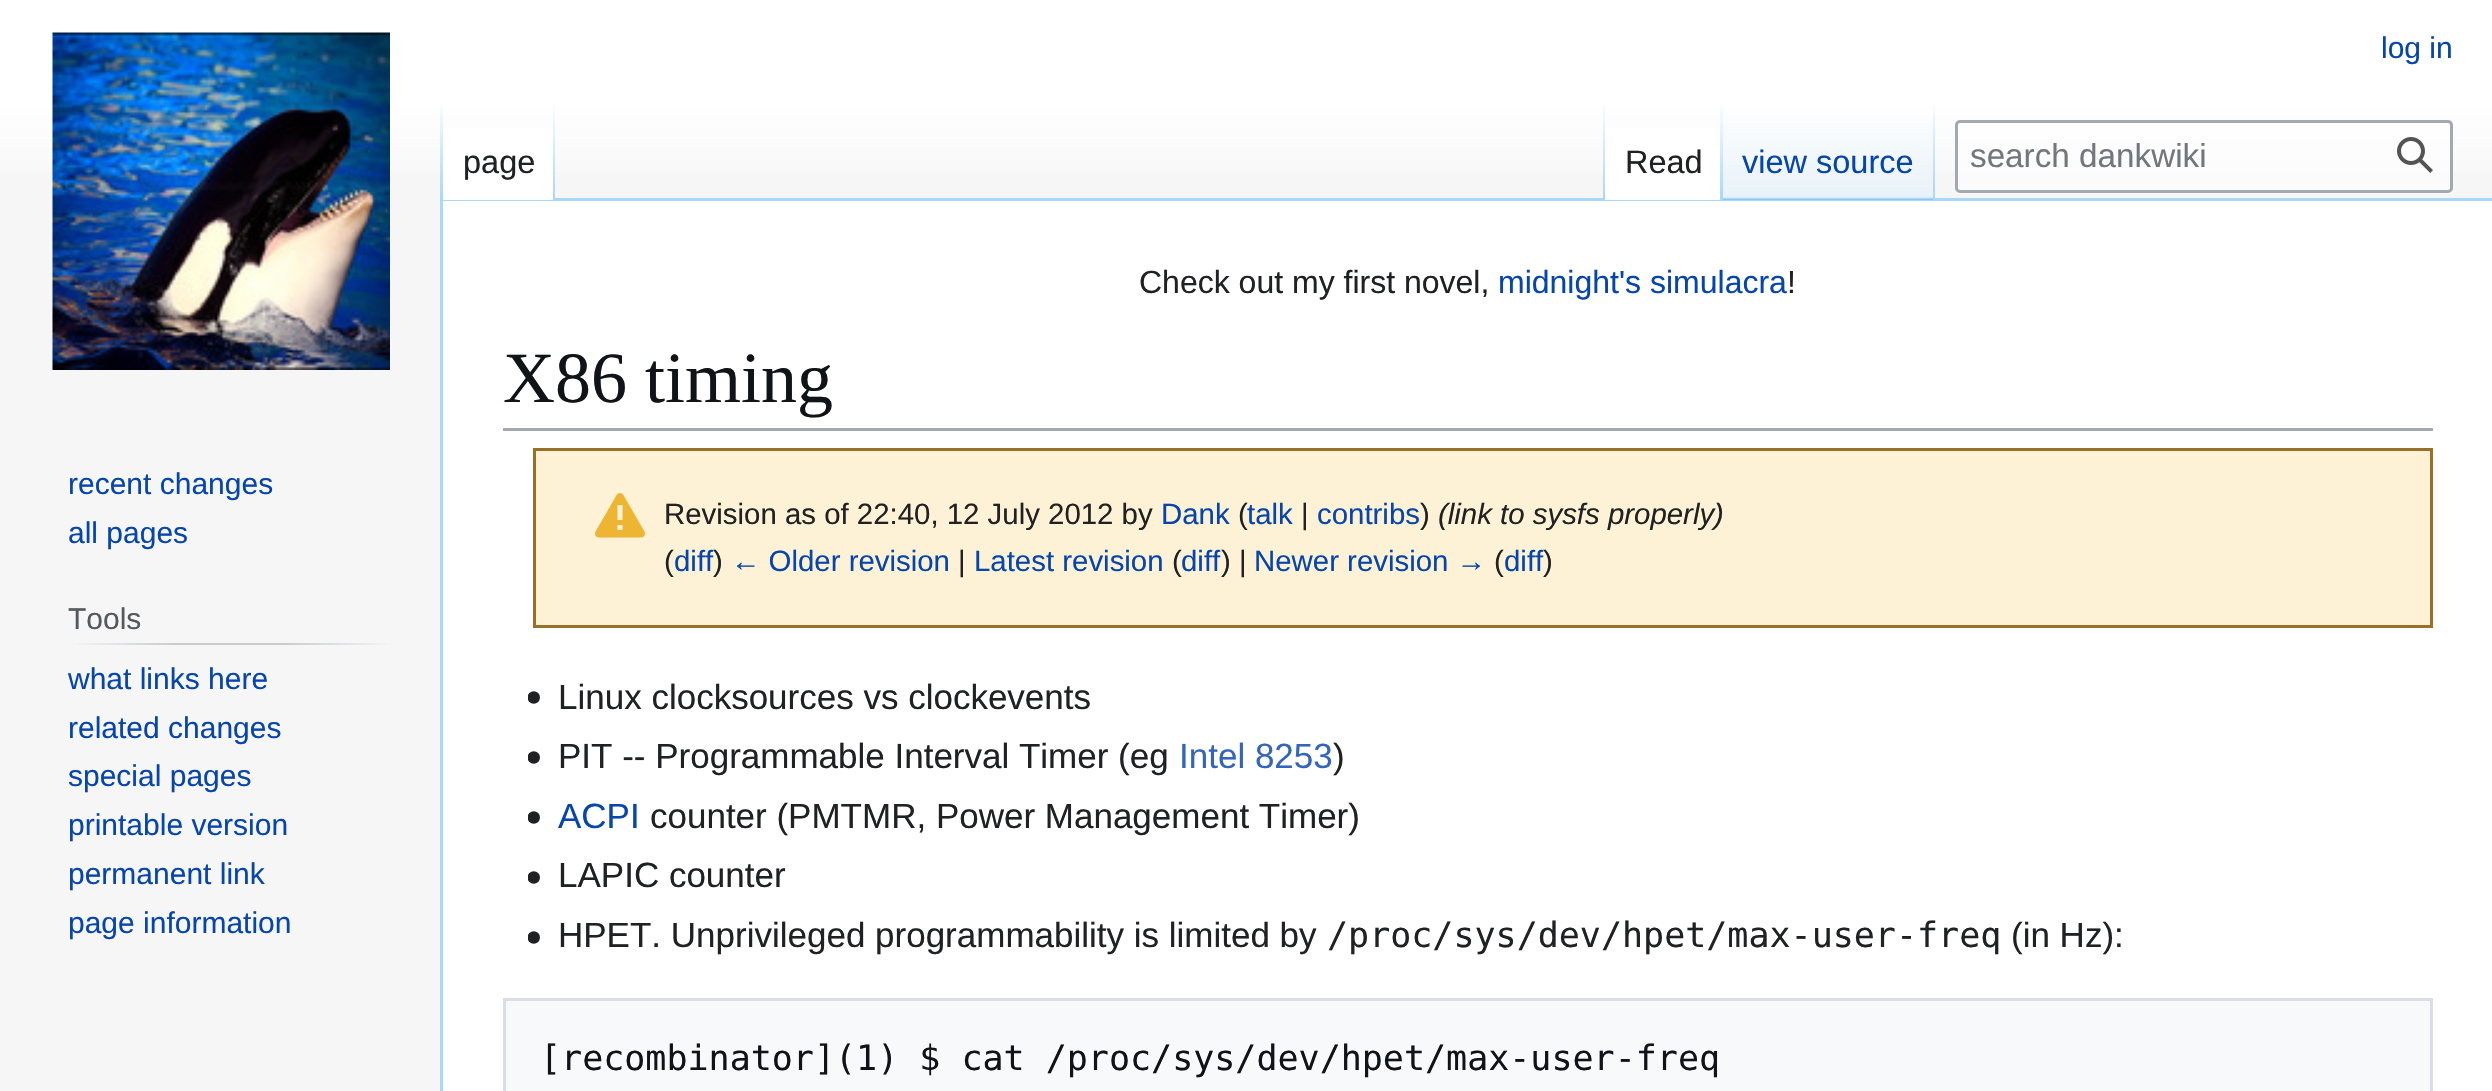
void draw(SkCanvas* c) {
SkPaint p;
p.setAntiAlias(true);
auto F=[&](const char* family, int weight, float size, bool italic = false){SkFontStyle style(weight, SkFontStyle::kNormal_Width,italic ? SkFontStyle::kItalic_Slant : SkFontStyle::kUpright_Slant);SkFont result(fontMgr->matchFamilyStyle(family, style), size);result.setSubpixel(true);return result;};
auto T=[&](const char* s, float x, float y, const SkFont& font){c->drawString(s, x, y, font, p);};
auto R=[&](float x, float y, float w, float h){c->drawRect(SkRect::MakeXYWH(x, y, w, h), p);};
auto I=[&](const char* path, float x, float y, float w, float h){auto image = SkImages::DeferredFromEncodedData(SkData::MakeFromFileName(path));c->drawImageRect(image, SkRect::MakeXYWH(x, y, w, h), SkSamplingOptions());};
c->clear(0xfff6f6f6);
{
const SkColor colors[] = {0xffffffff,0xfff6f6f6};
const float stops[] = {.5,1};
const SkPoint ends[] = {{1246,0}, {1246,200}};
p.setShader(SkGradientShader::MakeLinear(ends, colors, stops, 2, SkTileMode::kClamp));
p.setAlpha(255);
}
R(0,0,2492,172);
auto f1 = F("Liberation Sans",400,30);
p.setShader(nullptr);
p.setColor(0xff0645ad);
T("log in",2381,58,f1);
p.setColor(0xffa7d7f9);
R(440,198,2052,3);
R(440,198,3,893);
{
const SkColor colors[] = {0x00a7d7f9,0xffa7d7f9};
const float stops[] = {0,1};
const SkPoint ends[] = {{441,100}, {441,200}};
p.setShader(SkGradientShader::MakeLinear(ends, colors, stops, 2, SkTileMode::kClamp));
p.setAlpha(255);
}
R(440,100,3,100);
p.setShader(nullptr);
p.setColor(0xffffffff);
R(443,128,110,72);
{
const SkColor colors[] = {0xffffffff,0xffa7d7f9};
const float stops[] = {0,1};
const SkPoint ends[] = {{554,100}, {554,200}};
p.setShader(SkGradientShader::MakeLinear(ends, colors, stops, 2, SkTileMode::kClamp));
p.setAlpha(255);
}
R(553,100,2,100);
auto f2 = F("Liberation Sans",400,32.5);
p.setShader(nullptr);
p.setColor(0xff202122);
T("page",463,173,f2);
{
const SkColor colors[] = {0x00a7d7f9,0xffa7d7f9};
const float stops[] = {0,1};
const SkPoint ends[] = {{1604,100}, {1604,200}};
p.setShader(SkGradientShader::MakeLinear(ends, colors, stops, 2, SkTileMode::kClamp));
p.setAlpha(255);
}
R(1603,100,2,100);
p.setShader(nullptr);
p.setColor(0xffffffff);
R(1605,128,115,72);
{
const SkColor colors[] = {0xffffffff,0xffa7d7f9};
const float stops[] = {0,1};
const SkPoint ends[] = {{1721,100}, {1721,200}};
p.setShader(SkGradientShader::MakeLinear(ends, colors, stops, 2, SkTileMode::kClamp));
p.setAlpha(255);
}
R(1720,100,3,100);
p.setShader(nullptr);
p.setColor(0xff202122);
T("Read",1625,173,f2);
{
const SkColor colors[] = {0xff77c1f6,0xffe8f2f8,0xffffffff};
const float stops[] = {0,.03,1};
const SkPoint ends[] = {{1829,200}, {1829,100}};
p.setShader(SkGradientShader::MakeLinear(ends, colors, stops, 3, SkTileMode::kClamp));
p.setAlpha(255);
}
R(1723,115,212,85);
{
const SkColor colors[] = {0x00a7d7f9,0xffa7d7f9};
const float stops[] = {0,1};
const SkPoint ends[] = {{1934,100}, {1934,200}};
p.setShader(SkGradientShader::MakeLinear(ends, colors, stops, 2, SkTileMode::kClamp));
p.setAlpha(255);
}
R(1933,100,2,100);
p.setShader(nullptr);
p.setColor(0xff0645ad);
T("view source",1742,173,f2);
p.setColor(0x80ffffff);
c->drawRoundRect(SkRect::MakeXYWH(1956.5,121.5,495,70),3.5,3.5,p);
p.setStroke(true);
p.setStrokeWidth(3);
p.setColor(0xffa2a9b1);
c->drawRoundRect(SkRect::MakeXYWH(1956.5,121.5,495,70),3.5,3.5,p);
auto f3 = F("Liberation Sans",400,33.25);
p.setStroke(false);
p.setColor(0xff72777d);
T("search dankwiki",1970,167,f3);
I("1.png",2397,137,36,36);
I("2.png",52,32,338,338);
p.setColor(0xff0645ad);
T("recent changes",68,494,f1);
T("all pages",68,543,f1);
{
const SkColor colors[] = {0xfff6f6f6,0xffc8ccd1,0xffc8ccd1,0xfff6f6f6};
const float stops[] = {0,.33,.66,1};
const SkPoint ends[] = {{68,644}, {395,644}};
p.setShader(SkGradientShader::MakeLinear(ends, colors, stops, 4, SkTileMode::kClamp));
p.setAlpha(255);
}
R(68,643,327,2);
p.setShader(nullptr);
p.setColor(0xff54595d);
T("Tools",68,629,f1);
p.setColor(0xff0645ad);
T("what links here",68,689,f1);
T("related changes",68,738,f1);
T("special pages",68,786,f1);
T("printable version",68,835,f1);
T("permanent link",68,884,f1);
T("page information",68,933,f1);
p.setColor(0xffffffff);
R(443,201,2049,890);
auto f4 = F("Liberation Sans",400,32);
p.setColor(0xff202122);
T("Check out my first novel,",1139,293,f4);
p.setColor(0xff0645ad);
T("midnight's simulacra",1498,293,f4);
p.setColor(0xff202122);
T("!",1787,293,f4);
p.setColor(0xffa2a9b1);
R(503,428,1930,3);
auto f5 = F("Liberation Serif",400,72);
p.setColor(0xff101418);
T("X86 timing",503,402,f5);
p.setColor(0xfffdf2d5);
c->drawRect(SkRect::MakeXYWH(534.5,449.5,1897,177),p);
p.setStroke(true);
p.setColor(0xff987027);
c->drawRect(SkRect::MakeXYWH(534.5,449.5,1897,177),p);
I("3.png",595,493,50,45);
auto f6 = F("Liberation Sans",400,29.4);
p.setStroke(false);
p.setColor(0xff202122);
T("Revision as of 22:40, 12 July 2012 by",664,524,f6);
p.setColor(0xff0645ad);
T("Dank",1161,524,f6);
p.setColor(0xff202122);
T("(",1238,524,f6);
p.setColor(0xff0645ad);
T("talk",1247,524,f6);
p.setColor(0xff202122);
T("|",1301,524,f6);
p.setColor(0xff0645ad);
T("contribs",1317,524,f6);
p.setColor(0xff202122);
T(")",1420,524,f6);
auto f7 = F("Liberation Sans",400,29.4,true);
T("(link to sysfs properly)",1438,524,f7);
T("(",664,571,f6);
p.setColor(0xff0645ad);
T("diff",674,571,f6);
p.setColor(0xff202122);
T(")",713,571,f6);
p.setColor(0xff0645ad);
T("← Older revision",731,571,f6);
p.setColor(0xff202122);
T("|",958,571,f6);
p.setColor(0xff0645ad);
T("Latest revision",974,571,f6);
p.setColor(0xff202122);
T("(",1172,571,f6);
p.setColor(0xff0645ad);
T("diff",1181,571,f6);
p.setColor(0xff202122);
T(") |",1221,571,f6);
p.setColor(0xff0645ad);
T("Newer revision →",1254,571,f6);
p.setColor(0xff202122);
T("(",1494,571,f6);
p.setColor(0xff0645ad);
T("diff",1504,571,f6);
p.setColor(0xff202122);
T(")",1543,571,f6);
I("4.png",528,691,12,13);
auto f8 = F("Liberation Sans",400,35);
T("Linux clocksources vs clockevents",558,709,f8);
I("5.png",528,751,12,13);
T("PIT -- Programmable Interval Timer (eg",558,768,f8);
p.setColor(0xff3366bb);
T("Intel 8253",1179,768,f8);
p.setColor(0xff202122);
T(")",1333,768,f8);
I("4.png",528,811,12,13);
p.setColor(0xff0645ad);
T("ACPI",558,828,f8);
p.setColor(0xff202122);
T("counter (PMTMR, Power Management Timer)",650,828,f8);
I("4.png",528,871,12,13);
T("LAPIC counter",558,887,f8);
I("4.png",528,931,12,13);
T("HPET. Unprivileged programmability is limited by",558,947,f8);
auto f9 = F("DejaVu Sans Mono",400,35);
T("/proc/sys/dev/hpet/max-user-freq",1327,947,f9);
T("(in Hz):",2011,947,f8);
p.setColor(0xfff8f9fa);
c->drawRect(SkRect::MakeXYWH(504.5,999.5,1927,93),p);
p.setStroke(true);
p.setColor(0xffdadde3);
c->drawRect(SkRect::MakeXYWH(504.5,999.5,1927,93),p);
p.setStroke(false);
p.setColor(0xff101418);
T("[recombinator](1) $ cat /proc/sys/dev/hpet/max-user-freq",540,1070,f9);
}
